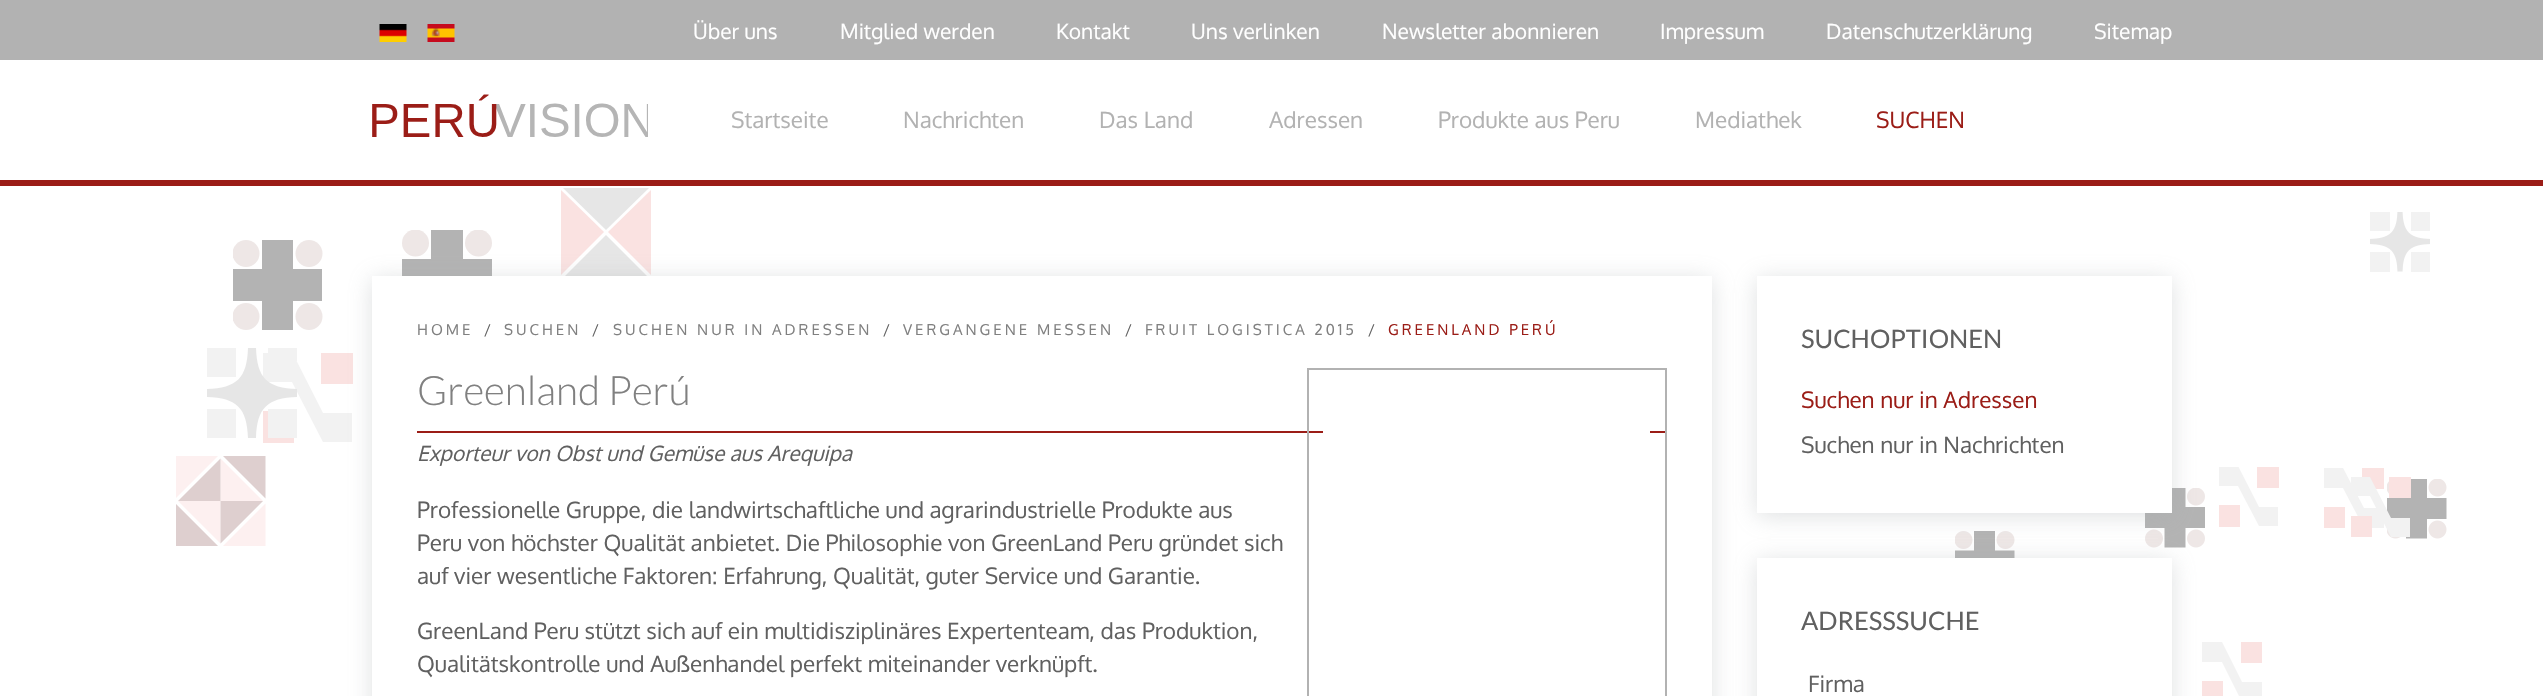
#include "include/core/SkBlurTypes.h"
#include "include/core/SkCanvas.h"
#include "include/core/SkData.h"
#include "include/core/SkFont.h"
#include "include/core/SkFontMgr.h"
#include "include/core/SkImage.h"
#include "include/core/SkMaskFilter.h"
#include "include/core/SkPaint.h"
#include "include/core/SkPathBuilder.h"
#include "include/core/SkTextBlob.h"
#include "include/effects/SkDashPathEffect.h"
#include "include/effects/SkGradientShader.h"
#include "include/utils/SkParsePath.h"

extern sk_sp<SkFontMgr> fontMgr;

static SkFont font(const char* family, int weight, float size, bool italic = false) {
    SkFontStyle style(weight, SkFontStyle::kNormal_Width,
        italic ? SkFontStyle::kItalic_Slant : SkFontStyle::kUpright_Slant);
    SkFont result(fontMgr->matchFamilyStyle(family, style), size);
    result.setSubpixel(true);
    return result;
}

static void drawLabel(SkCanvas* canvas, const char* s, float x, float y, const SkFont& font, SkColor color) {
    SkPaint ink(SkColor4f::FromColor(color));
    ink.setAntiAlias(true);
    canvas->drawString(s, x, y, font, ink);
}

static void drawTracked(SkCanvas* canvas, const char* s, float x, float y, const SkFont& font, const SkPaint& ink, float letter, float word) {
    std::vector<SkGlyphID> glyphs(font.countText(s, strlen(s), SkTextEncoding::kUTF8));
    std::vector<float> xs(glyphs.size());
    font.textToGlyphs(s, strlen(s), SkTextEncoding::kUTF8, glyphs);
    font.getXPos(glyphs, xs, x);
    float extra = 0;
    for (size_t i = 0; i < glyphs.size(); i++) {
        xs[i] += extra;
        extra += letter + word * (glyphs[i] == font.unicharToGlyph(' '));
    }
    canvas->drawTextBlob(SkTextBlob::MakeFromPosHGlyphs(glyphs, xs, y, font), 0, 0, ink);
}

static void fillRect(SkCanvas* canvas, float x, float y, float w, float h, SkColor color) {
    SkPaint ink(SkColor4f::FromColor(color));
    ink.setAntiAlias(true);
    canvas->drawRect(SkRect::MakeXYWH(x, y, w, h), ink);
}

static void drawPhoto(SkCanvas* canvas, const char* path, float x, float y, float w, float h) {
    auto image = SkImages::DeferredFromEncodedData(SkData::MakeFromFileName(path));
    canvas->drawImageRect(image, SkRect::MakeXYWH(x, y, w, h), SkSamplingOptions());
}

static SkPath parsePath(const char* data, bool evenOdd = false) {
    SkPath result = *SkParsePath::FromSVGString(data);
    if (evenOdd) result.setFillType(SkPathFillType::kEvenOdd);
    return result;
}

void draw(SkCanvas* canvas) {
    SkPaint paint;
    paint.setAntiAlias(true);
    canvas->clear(0xFFFFFFFF);
    fillRect(canvas, 0, 0, 2543, 60, 0xFFB2B2B2);
    drawPhoto(canvas, "assets/img1.png", 379, 24, 28, 18);
    drawPhoto(canvas, "assets/img2.png", 427, 24, 28, 18);
    SkFont font1 = font("Oxygen", 400, 21);
    drawLabel(canvas, "Über uns", 693, 39, font1, 0xFFFFFFFF);
    drawLabel(canvas, "Mitglied werden", 840, 39, font1, 0xFFFFFFFF);
    drawLabel(canvas, "Kontakt", 1056, 39, font1, 0xFFFFFFFF);
    drawLabel(canvas, "Uns verlinken", 1191, 39, font1, 0xFFFFFFFF);
    drawLabel(canvas, "Newsletter abonnieren", 1382, 39, font1, 0xFFFFFFFF);
    drawLabel(canvas, "Impressum", 1660, 39, font1, 0xFFFFFFFF);
    drawLabel(canvas, "Datenschutzerklärung", 1826, 39, font1, 0xFFFFFFFF);
    drawLabel(canvas, "Sitemap", 2094, 39, font1, 0xFFFFFFFF);
    fillRect(canvas, 0, 180, 2543, 6, 0xFF9B1D17);
    drawPhoto(canvas, "assets/img3.png", 372, 94, 276, 43);
    SkFont font2 = font("Oxygen", 400, 22.5f);
    drawLabel(canvas, "Startseite", 731, 128, font2, 0xFFB2B2B2);
    drawLabel(canvas, "Nachrichten", 903, 128, font2, 0xFFB2B2B2);
    drawLabel(canvas, "Das Land", 1099, 128, font2, 0xFFB2B2B2);
    drawLabel(canvas, "Adressen", 1269, 128, font2, 0xFFB2B2B2);
    drawLabel(canvas, "Produkte aus Peru", 1438, 128, font2, 0xFFB2B2B2);
    drawLabel(canvas, "Mediathek", 1695, 128, font2, 0xFFB2B2B2);
    drawLabel(canvas, "SUCHEN", 1876, 128, font2, 0xFF9B1D17);
    canvas->save();
    canvas->clipRect(SkRect::MakeXYWH(233, 240, 90, 90));
    paint.setColor(0xFFB3B3B3);
    canvas->drawPath(parsePath("M262 240H293V269H322V301H293V330H262V301H232V269H262ZM264 272H291V298H264Z"), paint);
    paint.setColor(0xFFEEE7E6);
    canvas->drawCircle(246, 253.5f, 13.5f, paint);
    canvas->restore();
    canvas->drawCircle(309, 253.5f, 13.5f, paint);
    canvas->save();
    canvas->clipRect(SkRect::MakeXYWH(233, 240, 90, 90));
    canvas->drawCircle(246, 316.5f, 13.5f, paint);
    canvas->restore();
    canvas->drawCircle(309, 316.5f, 13.5f, paint);
    paint.setColor(0xFFB3B3B3);
    canvas->drawPath(parsePath("M431 230H463V259H492V290H463V320H431V290H402V259H431ZM434 261H460V288H434Z"), paint);
    canvas->save();
    canvas->clipRect(SkRect::MakeXYWH(402, 230, 90, 90));
    paint.setColor(0xFFEEE7E6);
    canvas->drawCircle(415.5f, 243, 13.5f, paint);
    canvas->drawCircle(478.5f, 243, 13.5f, paint);
    canvas->restore();
    paint.setColor(0xFFFAE2E1);
    canvas->drawPath(parsePath("M604 232L561 190V275Z"), paint);
    canvas->drawPath(parsePath("M651 275L608 232L651 190Z"), paint);
    paint.setColor(0xFFE6E6E6);
    canvas->drawPath(parsePath("M606 230L563 188H649Z"), paint);
    canvas->drawPath(parsePath("M649 278L606 235L563 278Z"), paint);
    drawPhoto(canvas, "assets/img4.png", 2370, 212, 60, 60);
    canvas->save();
    canvas->clipRect(SkRect::MakeXYWH(263, 353, 90, 90));
    paint.setColor(0xFFF2F2F2);
    canvas->drawPath(parsePath("M262 382V352H292L323 413H352V442H323L292 382Z"), paint);
    canvas->restore();
    fillRect(canvas, 263, 411, 31, 32, 0xFFFAE2E1);
    paint.setColor(0xFFE6E6E6);
    canvas->drawPath(parsePath("M207 397V389C237 388 247 378 248 348H256C257 378 267 388 297 389V397C267 398 257 408 256 438H248C247 408 237 398 207 397Z"), paint);
    fillRect(canvas, 207, 348, 29, 29, 0xFFF2F2F2);
    fillRect(canvas, 268, 348, 29, 13, 0xFFF2F2F2);
    fillRect(canvas, 207, 409, 29, 29, 0xFFF2F2F2);
    fillRect(canvas, 268, 409, 29, 29, 0xFFF2F2F2);
    fillRect(canvas, 321, 353, 32, 31, 0xFFFAE2E1);
    drawPhoto(canvas, "assets/img5.png", 176, 456, 90, 90);
    canvas->save();
    canvas->clipRect(SkRect::MakeXYWH(2219, 467, 60, 60));
    paint.setColor(0xFFF2F2F2);
    canvas->drawPath(parsePath("M2218 486V466H2238L2259 507H2278V526H2259L2238 486Z"), paint);
    canvas->restore();
    fillRect(canvas, 2257, 467, 22, 21, 0xFFFAE2E1);
    fillRect(canvas, 2219, 505, 21, 22, 0xFFFAE2E1);
    canvas->drawPath(parsePath("M2324 488V468H2343L2364 508H2384V528H2364L2343 488Z"), paint);
    fillRect(canvas, 2362, 468, 22, 21, 0xFFFAE2E1);
    fillRect(canvas, 2324, 507, 21, 21, 0xFFFAE2E1);
    drawPhoto(canvas, "assets/img6.png", 1955, 531, 60, 27);
    drawPhoto(canvas, "assets/img7.png", 2145, 488, 60, 60);
    drawPhoto(canvas, "assets/img8.png", 2387, 479, 60, 60);
    canvas->save();
    canvas->clipRect(SkRect::MakeXYWH(2351, 477, 60, 60));
    canvas->drawPath(parsePath("M2350 496V477H2370L2391 518H2410V537H2391L2370 496Z"), paint);
    canvas->restore();
    fillRect(canvas, 2389, 477, 22, 21, 0xFFFAE2E1);
    fillRect(canvas, 2351, 516, 21, 21, 0xFFFAE2E1);
    canvas->drawPath(parsePath("M2202 662V642H2222L2242 682H2262V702H2242L2222 662Z"), paint);
    fillRect(canvas, 2241, 642, 21, 21, 0xFFFAE2E1);
    fillRect(canvas, 2202, 681, 21, 15, 0xFFFAE2E1);
    paint.setColor(0x59A0A6A8);
    paint.setMaskFilter(SkMaskFilter::MakeBlur(kNormal_SkBlurStyle, 11));
    canvas->drawRect(SkRect::MakeXYWH(372, 279, 1340, 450), paint);
    paint.setMaskFilter(nullptr);
    fillRect(canvas, 372, 276, 1340, 420, 0xFFFFFFFF);
    SkFont font3 = font("Oxygen", 400, 15);
    paint.setColor(0xFF808080);
    drawTracked(canvas, "HOME", 417, 335, font3, paint, 3, 0);
    paint.setColor(0xFF606060);
    drawTracked(canvas, "/", 484, 335, font3, paint, 3, 0);
    paint.setColor(0xFF808080);
    drawTracked(canvas, "SUCHEN", 504, 335, font3, paint, 3, 0);
    paint.setColor(0xFF606060);
    drawTracked(canvas, "/", 592, 335, font3, paint, 3, 0);
    paint.setColor(0xFF808080);
    drawTracked(canvas, "SUCHEN NUR IN ADRESSEN", 613, 335, font3, paint, 3, 0);
    paint.setColor(0xFF606060);
    drawTracked(canvas, "/", 883, 335, font3, paint, 3, 0);
    paint.setColor(0xFF808080);
    drawTracked(canvas, "VERGANGENE MESSEN", 903, 335, font3, paint, 3, 0);
    paint.setColor(0xFF606060);
    drawTracked(canvas, "/", 1125, 335, font3, paint, 3, 0);
    paint.setColor(0xFF808080);
    drawTracked(canvas, "FRUIT LOGISTICA 2015", 1145, 335, font3, paint, 3, 0);
    paint.setColor(0xFF606060);
    drawTracked(canvas, "/", 1368, 335, font3, paint, 3, 0);
    paint.setColor(0xFF9B1D17);
    drawTracked(canvas, "GREENLAND PERÚ", 1388, 335, font3, paint, 3, 0);
    fillRect(canvas, 417, 431, 1250, 2, 0xFF9B1D17);
    SkFont font4 = font("Lato", 300, 40.5f);
    drawLabel(canvas, "Greenland Perú", 417, 405, font4, 0xFF808080);
    paint.setStroke(true);
    paint.setStrokeWidth(2);
    paint.setColor(0xFFB2B2B2);
    canvas->drawRect(SkRect::MakeXYWH(1308, 369, 358, 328), paint);
    fillRect(canvas, 1323, 431, 327, 2, 0xFFFFFFFF);
    SkFont font5 = font("Oxygen", 400, 21, true);
    drawLabel(canvas, "Exporteur von Obst und Gemüse aus Arequipa", 417, 461, font5, 0xFF606060);
    drawLabel(canvas, "Professionelle Gruppe, die landwirtschaftliche und agrarindustrielle Produkte aus", 417, 518, font2, 0xFF606060);
    drawLabel(canvas, "Peru von höchster Qualität anbietet. Die Philosophie von GreenLand Peru gründet sich", 417, 551, font2, 0xFF606060);
    drawLabel(canvas, "auf vier wesentliche Faktoren: Erfahrung, Qualität, guter Service und Garantie.", 417, 584, font2, 0xFF606060);
    drawLabel(canvas, "GreenLand Peru stützt sich auf ein multidisziplinäres Expertenteam, das Produktion,", 417, 639, font2, 0xFF606060);
    drawLabel(canvas, "Qualitätskontrolle und Außenhandel perfekt miteinander verknüpft.", 417, 672, font2, 0xFF606060);
    paint.setStroke(false);
    paint.setColor(0x59A0A6A8);
    paint.setMaskFilter(SkMaskFilter::MakeBlur(kNormal_SkBlurStyle, 11));
    canvas->drawRect(SkRect::MakeXYWH(1757, 279, 415, 237), paint);
    paint.setMaskFilter(nullptr);
    fillRect(canvas, 1757, 276, 415, 237, 0xFFFFFFFF);
    SkFont font6 = font("Lato", 400, 25.5f);
    drawLabel(canvas, "SUCHOPTIONEN", 1801, 348, font6, 0xFF606060);
    drawLabel(canvas, "Suchen nur in Adressen", 1801, 408, font2, 0xFF9B1D17);
    drawLabel(canvas, "Suchen nur in Nachrichten", 1801, 453, font2, 0xFF606060);
    paint.setMaskFilter(SkMaskFilter::MakeBlur(kNormal_SkBlurStyle, 11));
    canvas->drawRect(SkRect::MakeXYWH(1757, 561, 415, 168), paint);
    paint.setMaskFilter(nullptr);
    fillRect(canvas, 1757, 558, 415, 138, 0xFFFFFFFF);
    drawLabel(canvas, "ADRESSSUCHE", 1801, 630, font6, 0xFF606060);
    drawLabel(canvas, "Firma", 1808, 692, font2, 0xFF606060);
}
